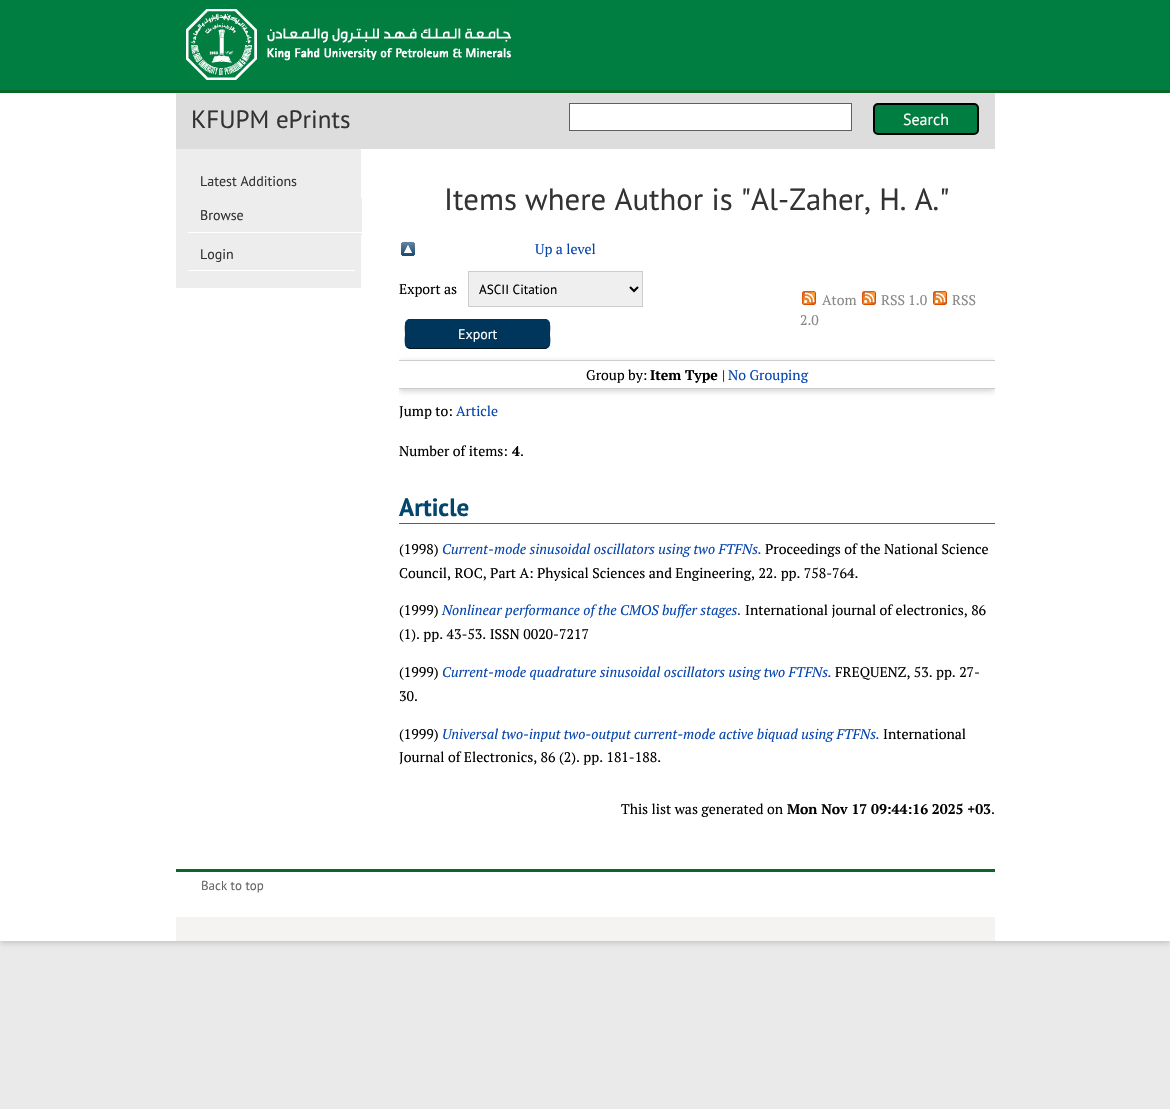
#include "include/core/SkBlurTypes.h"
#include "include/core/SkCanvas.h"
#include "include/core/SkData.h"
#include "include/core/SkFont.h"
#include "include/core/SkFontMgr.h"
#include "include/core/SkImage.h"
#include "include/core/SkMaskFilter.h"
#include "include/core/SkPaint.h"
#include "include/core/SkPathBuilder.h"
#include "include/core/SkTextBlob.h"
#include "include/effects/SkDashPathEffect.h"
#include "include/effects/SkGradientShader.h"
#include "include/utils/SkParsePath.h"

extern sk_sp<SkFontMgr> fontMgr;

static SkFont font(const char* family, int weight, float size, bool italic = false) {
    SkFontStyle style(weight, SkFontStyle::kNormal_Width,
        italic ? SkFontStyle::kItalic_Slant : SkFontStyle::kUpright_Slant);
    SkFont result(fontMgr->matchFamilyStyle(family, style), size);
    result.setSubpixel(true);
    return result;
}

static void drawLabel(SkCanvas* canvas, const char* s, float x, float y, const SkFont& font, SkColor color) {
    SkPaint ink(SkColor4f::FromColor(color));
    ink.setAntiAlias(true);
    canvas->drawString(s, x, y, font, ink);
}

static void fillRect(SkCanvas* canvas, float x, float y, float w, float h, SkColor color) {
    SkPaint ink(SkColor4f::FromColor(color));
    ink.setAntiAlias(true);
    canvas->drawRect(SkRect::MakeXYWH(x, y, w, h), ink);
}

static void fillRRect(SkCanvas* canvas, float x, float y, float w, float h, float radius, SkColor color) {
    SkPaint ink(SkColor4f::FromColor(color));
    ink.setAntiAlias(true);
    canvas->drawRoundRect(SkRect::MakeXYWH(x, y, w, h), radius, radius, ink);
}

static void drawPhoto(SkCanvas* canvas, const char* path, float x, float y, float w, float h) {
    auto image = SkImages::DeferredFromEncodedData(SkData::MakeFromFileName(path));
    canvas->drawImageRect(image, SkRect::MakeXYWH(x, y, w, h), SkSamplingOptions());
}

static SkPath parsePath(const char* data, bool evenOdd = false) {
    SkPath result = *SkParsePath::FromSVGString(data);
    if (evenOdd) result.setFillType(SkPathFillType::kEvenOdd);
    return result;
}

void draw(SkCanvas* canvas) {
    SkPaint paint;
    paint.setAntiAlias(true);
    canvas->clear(0xFFEAEAEA);
    paint.setColor(0x4D646464);
    paint.setMaskFilter(SkMaskFilter::MakeBlur(kNormal_SkBlurStyle, 3));
    canvas->drawRect(SkRect::MakeXYWH(0, 1, 1170, 942), paint);
    paint.setMaskFilter(nullptr);
    fillRect(canvas, 0, 93, 1170, 848, 0xFFFFFFFF);
    fillRect(canvas, 0, 0, 1170, 90, 0xFF007D40);
    fillRect(canvas, 0, 90, 1170, 3, 0xFF0A672A);
    drawPhoto(canvas, "assets/img1.png", 186, 9, 325, 71);
    fillRect(canvas, 176, 869, 819, 3, 0xFF0A672A);
    fillRect(canvas, 176, 93, 819, 56, 0xFFDDDDDD);
    SkFont font1 = font("PT Sans", 400, 25);
    drawLabel(canvas, "KFUPM ePrints", 191, 128, font1, 0xFF333333);
    paint.setColor(0xFFFFFFFF);
    canvas->drawRect(SkRect::MakeXYWH(569.5f, 103.5f, 282, 27), paint);
    paint.setStroke(true);
    paint.setStrokeWidth(1);
    paint.setColor(0xFF606060);
    canvas->drawRect(SkRect::MakeXYWH(569.5f, 103.5f, 282, 27), paint);
    paint.setStroke(false);
    paint.setColor(0xFF007D40);
    canvas->drawRoundRect(SkRect::MakeXYWH(874, 104, 104, 30), 4, 4, paint);
    paint.setStroke(true);
    paint.setStrokeWidth(2);
    paint.setColor(0xFF000000);
    canvas->drawRoundRect(SkRect::MakeXYWH(874, 104, 104, 30), 4, 4, paint);
    SkFont font2 = font("PT Sans", 400, 16);
    drawLabel(canvas, "Search", 903, 125, font2, 0xFFFFFFFF);
    fillRect(canvas, 176, 149, 185, 139, 0xFFEDEDED);
    SkFont font3 = font("PT Sans", 400, 14);
    drawLabel(canvas, "Latest Additions", 200, 186, font3, 0xFF333333);
    fillRect(canvas, 361, 198, 1, 37, 0xFFEDEDED);
    fillRect(canvas, 188, 232, 174, 1, 0xFFFFFFFF);
    drawLabel(canvas, "Browse", 200, 220, font3, 0xFF333333);
    fillRect(canvas, 188, 270, 167, 1, 0xFFFFFFFF);
    drawLabel(canvas, "Login", 200, 259, font3, 0xFF333333);
    SkFont font4 = font("PT Sans", 400, 30.75f);
    drawLabel(canvas, "Items where Author is \"Al-Zaher, H. A.\"", 444, 210, font4, 0xFF333333);
    drawPhoto(canvas, "assets/img2.png", 401, 242, 14, 14);
    SkFont font5 = font("PT Serif", 400, 14);
    drawLabel(canvas, "Up a level", 535, 254, font5, 0xFF0645AD);
    drawLabel(canvas, "Export as", 399, 294, font5, 0xFF000000);
    paint.setStroke(false);
    paint.setColor(0xFFEFEFEF);
    canvas->drawRect(SkRect::MakeXYWH(468.5f, 271.5f, 174, 35), paint);
    paint.setStroke(true);
    paint.setStrokeWidth(1);
    paint.setColor(0xFFCCCCCC);
    canvas->drawRect(SkRect::MakeXYWH(468.5f, 271.5f, 174, 35), paint);
    paint.setStrokeWidth(2);
    paint.setColor(0xFF000000);
    canvas->drawPath(parsePath("M630 287L634 291L638 287"), paint);
    SkFont font6 = font("PT Sans", 400, 13.25f);
    drawLabel(canvas, "ASCII Citation", 479, 294, font6, 0xFF000000);
    fillRRect(canvas, 405, 319, 145, 30, 5, 0xFF00365B);
    paint.setStrokeWidth(1);
    paint.setColor(0xFF04141F);
    canvas->drawPath(parsePath("M548 347L545.5 348.5H432.5H410L407 347"), paint);
    paint.setColor(0xFF00365B);
    canvas->drawPath(parsePath("M407 347C404 344.5 405.5 337 405.5 334C405.5 330.5 403.5 319.5 410 319.5H545C551.5 319.5 549.5 330.5 549.5 334C549.5 337 551 344.5 548 347"), paint);
    drawLabel(canvas, "Export", 458, 339, font3, 0xFFFFFFFF);
    drawPhoto(canvas, "assets/img3.png", 802, 291, 14, 14);
    drawLabel(canvas, "Atom", 822, 305, font5, 0xFF888888);
    drawPhoto(canvas, "assets/img3.png", 862, 291, 14, 14);
    drawLabel(canvas, "RSS 1.0", 881, 305, font5, 0xFF888888);
    drawPhoto(canvas, "assets/img3.png", 933, 291, 14, 14);
    drawLabel(canvas, "RSS", 952, 305, font5, 0xFF888888);
    drawLabel(canvas, "2.0", 800, 325, font5, 0xFF888888);
    canvas->save();
    canvas->clipRect(SkRect::MakeXYWH(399, 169, 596, 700));
    canvas->clipPath(parsePath("M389 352H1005V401H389ZM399 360H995V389H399Z", true), true);
    paint.setStroke(false);
    paint.setColor(0x4D646464);
    paint.setMaskFilter(SkMaskFilter::MakeBlur(kNormal_SkBlurStyle, 3));
    canvas->drawRect(SkRect::MakeXYWH(399, 362, 596, 29), paint);
    paint.setMaskFilter(nullptr);
    canvas->restore();
    fillRect(canvas, 399, 360, 596, 1, 0xFFCCCCCC);
    fillRect(canvas, 399, 388, 596, 1, 0xFFCCCCCC);
    drawLabel(canvas, "Group by:", 586, 380, font5, 0xFF000000);
    SkFont font7 = font("PT Serif", 700, 14);
    drawLabel(canvas, "Item Type", 650, 380, font7, 0xFF000000);
    drawLabel(canvas, "|", 722, 380, font5, 0xFF000000);
    drawLabel(canvas, "No Grouping", 728, 380, font5, 0xFF0645AD);
    drawLabel(canvas, "Jump to:", 399, 416, font5, 0xFF000000);
    drawLabel(canvas, "Article", 456, 416, font5, 0xFF0645AD);
    drawLabel(canvas, "Number of items:", 399, 456, font5, 0xFF000000);
    drawLabel(canvas, "4", 512, 456, font7, 0xFF000000);
    drawLabel(canvas, ".", 520, 456, font5, 0xFF000000);
    fillRect(canvas, 399, 523, 596, 1, 0xFF606060);
    SkFont font8 = font("PT Sans", 700, 25);
    drawLabel(canvas, "Article", 399, 516, font8, 0xFF02456D);
    drawLabel(canvas, "(1998)", 399, 554, font5, 0xFF000000);
    SkFont font9 = font("PT Serif", 400, 14, true);
    drawLabel(canvas, "Current-mode sinusoidal oscillators using two FTFNs.", 442, 554, font9, 0xFF0645AD);
    drawLabel(canvas, "Proceedings of the National Science", 765, 554, font5, 0xFF000000);
    drawLabel(canvas, "Council, ROC, Part A: Physical Sciences and Engineering, 22. pp. 758-764.", 399, 578, font5, 0xFF000000);
    drawLabel(canvas, "(1999)", 399, 615, font5, 0xFF000000);
    drawLabel(canvas, "Nonlinear performance of the CMOS buffer stages.", 442, 615, font9, 0xFF0645AD);
    drawLabel(canvas, "International journal of electronics, 86", 745, 615, font5, 0xFF000000);
    drawLabel(canvas, "(1). pp. 43-53. ISSN 0020-7217", 399, 639, font5, 0xFF000000);
    drawLabel(canvas, "(1999)", 399, 677, font5, 0xFF000000);
    drawLabel(canvas, "Current-mode quadrature sinusoidal oscillators using two FTFNs.", 442, 677, font9, 0xFF0645AD);
    drawLabel(canvas, "FREQUENZ, 53. pp. 27-", 835, 677, font5, 0xFF000000);
    drawLabel(canvas, "30.", 399, 701, font5, 0xFF000000);
    drawLabel(canvas, "(1999)", 399, 739, font5, 0xFF000000);
    drawLabel(canvas, "Universal two-input two-output current-mode active biquad using FTFNs.", 442, 739, font9, 0xFF0645AD);
    drawLabel(canvas, "International", 883, 739, font5, 0xFF000000);
    drawLabel(canvas, "Journal of Electronics, 86 (2). pp. 181-188.", 399, 762, font5, 0xFF000000);
    drawLabel(canvas, "This list was generated on", 621, 814, font5, 0xFF000000);
    drawLabel(canvas, "Mon Nov 17 09:44:16 2025 +03", 787, 814, font7, 0xFF000000);
    drawLabel(canvas, ".", 991, 814, font5, 0xFF000000);
    fillRect(canvas, 176, 917, 819, 24, 0xFFF4F3F2);
    SkFont font10 = font("PT Sans", 400, 13);
    drawLabel(canvas, "Back to top", 201, 890, font10, 0xFF666666);
}
